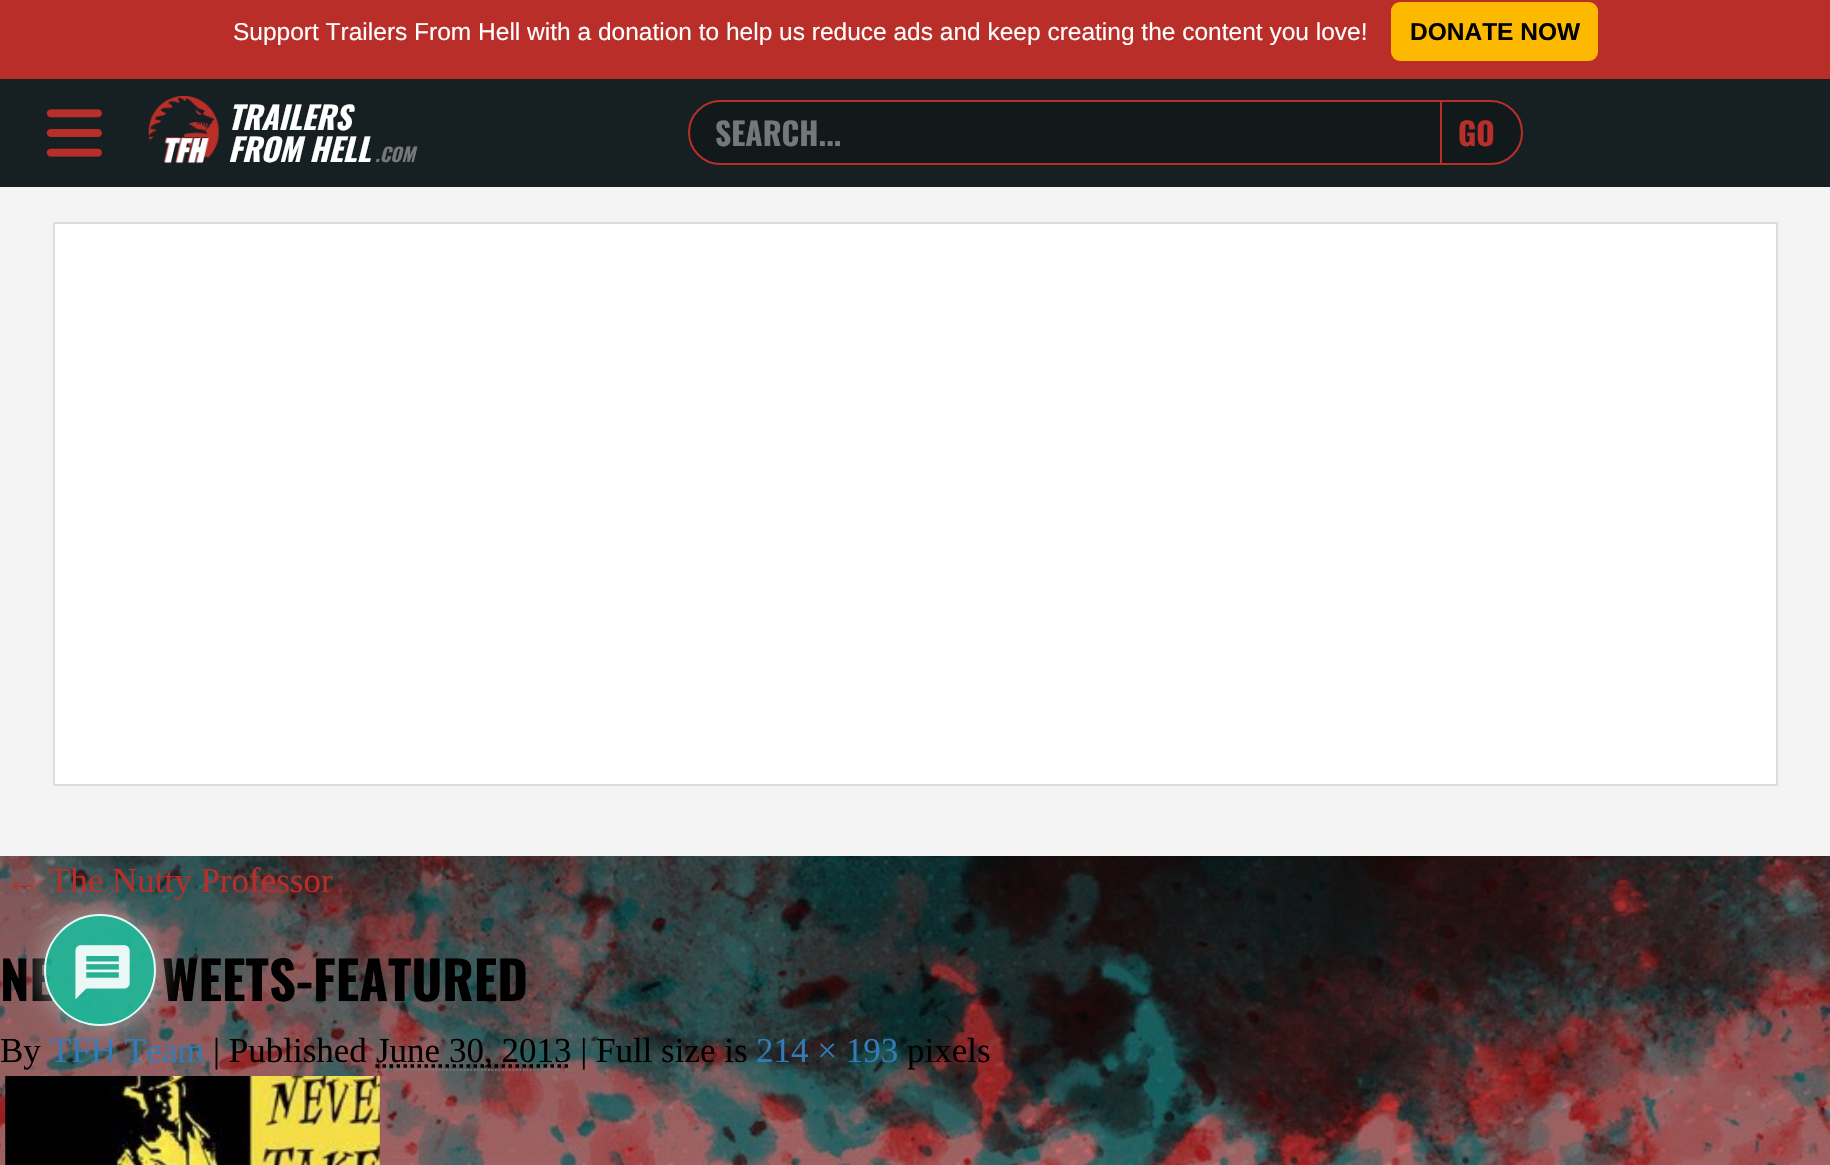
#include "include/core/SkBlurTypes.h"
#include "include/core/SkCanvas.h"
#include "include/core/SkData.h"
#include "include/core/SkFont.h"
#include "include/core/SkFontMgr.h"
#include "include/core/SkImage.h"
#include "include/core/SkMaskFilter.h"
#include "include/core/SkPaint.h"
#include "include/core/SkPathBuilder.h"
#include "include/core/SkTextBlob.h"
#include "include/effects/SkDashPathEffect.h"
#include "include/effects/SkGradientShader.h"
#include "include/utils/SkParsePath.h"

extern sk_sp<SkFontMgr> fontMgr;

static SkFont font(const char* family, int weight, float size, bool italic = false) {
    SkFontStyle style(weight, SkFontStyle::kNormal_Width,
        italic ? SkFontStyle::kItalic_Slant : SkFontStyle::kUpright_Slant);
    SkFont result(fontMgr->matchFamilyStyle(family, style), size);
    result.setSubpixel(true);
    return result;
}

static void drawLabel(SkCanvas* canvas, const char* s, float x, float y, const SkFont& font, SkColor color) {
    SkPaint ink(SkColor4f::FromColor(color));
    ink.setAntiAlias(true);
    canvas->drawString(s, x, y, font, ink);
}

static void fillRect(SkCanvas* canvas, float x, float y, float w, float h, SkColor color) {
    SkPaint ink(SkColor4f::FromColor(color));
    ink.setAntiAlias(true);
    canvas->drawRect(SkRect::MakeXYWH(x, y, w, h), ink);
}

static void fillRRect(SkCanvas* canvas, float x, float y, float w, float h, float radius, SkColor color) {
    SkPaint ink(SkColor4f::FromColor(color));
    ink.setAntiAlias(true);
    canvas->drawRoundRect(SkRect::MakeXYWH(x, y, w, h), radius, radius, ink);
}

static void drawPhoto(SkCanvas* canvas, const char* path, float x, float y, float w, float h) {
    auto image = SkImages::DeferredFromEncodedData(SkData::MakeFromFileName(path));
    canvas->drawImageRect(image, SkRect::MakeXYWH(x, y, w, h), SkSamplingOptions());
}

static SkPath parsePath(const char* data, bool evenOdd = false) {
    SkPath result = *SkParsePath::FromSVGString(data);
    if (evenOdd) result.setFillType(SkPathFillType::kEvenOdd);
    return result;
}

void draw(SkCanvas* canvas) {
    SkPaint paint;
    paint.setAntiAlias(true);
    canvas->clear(0xFFFFFFFF);
    drawPhoto(canvas, "assets/img1.png", 0, 856, 1830, 309);
    fillRect(canvas, 0, 0, 1830, 79, 0xFFBA2E29);
    SkFont font1 = font("Liberation Sans", 400, 24.5f);
    drawLabel(canvas, "Support Trailers From Hell with a donation to help us reduce ads and keep creating the content you love!", 233, 40, font1, 0xFFFFFFFF);
    fillRRect(canvas, 1391, 2, 207, 59, 9, 0xFFFCB900);
    SkFont font2 = font("Liberation Sans", 700, 24.5f);
    drawLabel(canvas, "DONATE NOW", 1410, 40, font2, 0xFF000000);
    fillRect(canvas, 0, 79, 1830, 108, 0xFF161F22);
    drawPhoto(canvas, "assets/img2.png", 46, 109, 56, 48);
    drawPhoto(canvas, "assets/img3.png", 148, 96, 71, 68);
    SkFont font3 = font("Oswald", 700, 31.5f, true);
    drawLabel(canvas, "TRAILERS", 228, 130, font3, 0xFFFFFFFF);
    drawLabel(canvas, "FROM HELL", 228, 162, font3, 0xFFFFFFFF);
    SkFont font4 = font("Oswald", 700, 19, true);
    drawLabel(canvas, ".COM", 375, 162, font4, 0xFF73797A);
    paint.setColor(0xFF12191B);
    canvas->drawRoundRect(SkRect::MakeXYWH(689, 101, 833, 63), 31.5f, 31.5f, paint);
    paint.setStroke(true);
    paint.setStrokeWidth(2);
    paint.setColor(0xFFBA2E29);
    canvas->drawRoundRect(SkRect::MakeXYWH(689, 101, 833, 63), 31.5f, 31.5f, paint);
    fillRect(canvas, 1440, 102, 2, 61, 0xFFBA2E29);
    SkFont font5 = font("Oswald", 700, 31.5f);
    drawLabel(canvas, "SEARCH...", 715, 146, font5, 0xFF73797A);
    drawLabel(canvas, "GO", 1458, 146, font5, 0xFFBA2E29);
    fillRect(canvas, 0, 187, 1830, 669, 0xFFF4F4F4);
    paint.setStroke(false);
    paint.setColor(0xFFFFFFFF);
    canvas->drawRect(SkRect::MakeXYWH(54, 223, 1723, 562), paint);
    paint.setStroke(true);
    paint.setColor(0xFFDDDDDD);
    canvas->drawRect(SkRect::MakeXYWH(54, 223, 1723, 562), paint);
    SkFont font6 = font("Liberation Serif", 400, 35);
    drawLabel(canvas, "← The Nutty Professor", 5, 892, font6, 0xFFBA2E29);
    SkFont font7 = font("Oswald", 700, 52.5f);
    drawLabel(canvas, "NE", 0, 1001, font7, 0xFF000000);
    drawLabel(canvas, "WEETS-FEATURED", 162, 1001, font7, 0xFF000000);
    drawLabel(canvas, "By", 0, 1062, font6, 0xFF000000);
    drawLabel(canvas, "TFH Team", 50, 1062, font6, 0xFF337AB7);
    drawLabel(canvas, "| Published", 213, 1062, font6, 0xFF000000);
    paint.setStrokeWidth(1.8f);
    paint.setColor(0xFF777777);
    paint.setPathEffect(SkDashPathEffect::Make({{1.75f, 1.75f}}, 0));
    canvas->drawPath(parsePath("M376 1070H570.5"), paint);
    paint.setPathEffect(nullptr);
    paint.setStrokeWidth(3.5f);
    paint.setColor(0xFF000000);
    paint.setPathEffect(SkDashPathEffect::Make({{3.5f, 3.5f}}, 0));
    canvas->drawPath(parsePath("M375.5 1066H571"), paint);
    paint.setPathEffect(nullptr);
    drawLabel(canvas, "June 30, 2013 | Full size is", 376, 1062, font6, 0xFF000000);
    drawLabel(canvas, "214 × 193", 756, 1062, font6, 0xFF337AB7);
    drawLabel(canvas, "pixels", 907, 1062, font6, 0xFF000000);
    drawPhoto(canvas, "assets/img4.png", 5, 1076, 375, 89);
    canvas->save();
    canvas->clipPath(parsePath("M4 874H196V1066H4ZM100 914C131 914 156 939 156 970C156 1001 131 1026 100 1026C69 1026 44 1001 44 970C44 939 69 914 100 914Z", true), true);
    paint.setStroke(false);
    paint.setColor(0xE6AAAAAA);
    paint.setMaskFilter(SkMaskFilter::MakeBlur(kNormal_SkBlurStyle, 13));
    canvas->drawRoundRect(SkRect::MakeXYWH(44, 914, 112, 112), 56, 56, paint);
    paint.setMaskFilter(nullptr);
    canvas->restore();
    paint.setColor(0xE61DB99A);
    canvas->drawCircle(100, 970, 56, paint);
    paint.setStroke(true);
    paint.setStrokeWidth(2);
    paint.setColor(0xE6FFFFFF);
    canvas->drawCircle(100, 970, 55, paint);
    drawPhoto(canvas, "assets/img5.png", 75, 945, 55, 55);
}
